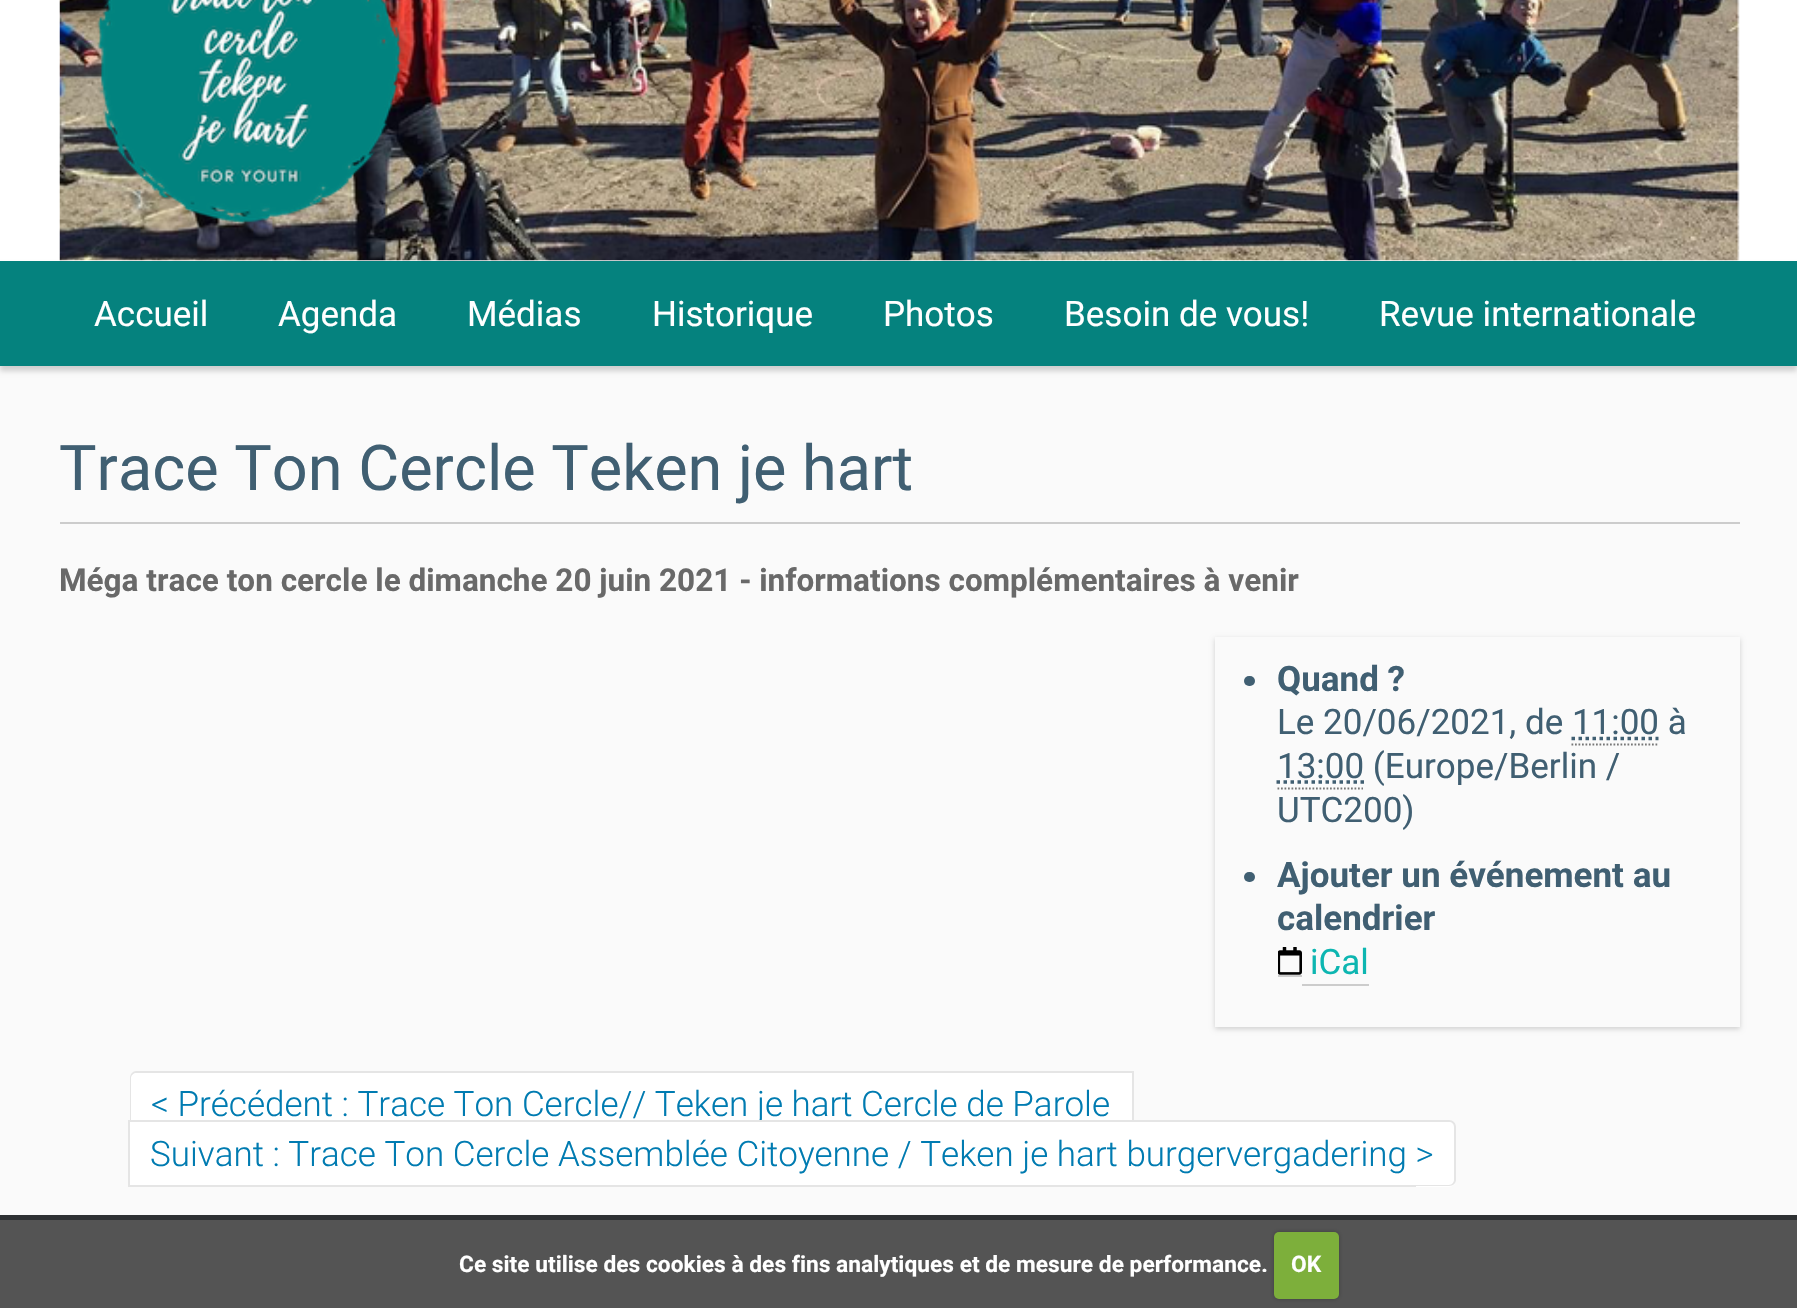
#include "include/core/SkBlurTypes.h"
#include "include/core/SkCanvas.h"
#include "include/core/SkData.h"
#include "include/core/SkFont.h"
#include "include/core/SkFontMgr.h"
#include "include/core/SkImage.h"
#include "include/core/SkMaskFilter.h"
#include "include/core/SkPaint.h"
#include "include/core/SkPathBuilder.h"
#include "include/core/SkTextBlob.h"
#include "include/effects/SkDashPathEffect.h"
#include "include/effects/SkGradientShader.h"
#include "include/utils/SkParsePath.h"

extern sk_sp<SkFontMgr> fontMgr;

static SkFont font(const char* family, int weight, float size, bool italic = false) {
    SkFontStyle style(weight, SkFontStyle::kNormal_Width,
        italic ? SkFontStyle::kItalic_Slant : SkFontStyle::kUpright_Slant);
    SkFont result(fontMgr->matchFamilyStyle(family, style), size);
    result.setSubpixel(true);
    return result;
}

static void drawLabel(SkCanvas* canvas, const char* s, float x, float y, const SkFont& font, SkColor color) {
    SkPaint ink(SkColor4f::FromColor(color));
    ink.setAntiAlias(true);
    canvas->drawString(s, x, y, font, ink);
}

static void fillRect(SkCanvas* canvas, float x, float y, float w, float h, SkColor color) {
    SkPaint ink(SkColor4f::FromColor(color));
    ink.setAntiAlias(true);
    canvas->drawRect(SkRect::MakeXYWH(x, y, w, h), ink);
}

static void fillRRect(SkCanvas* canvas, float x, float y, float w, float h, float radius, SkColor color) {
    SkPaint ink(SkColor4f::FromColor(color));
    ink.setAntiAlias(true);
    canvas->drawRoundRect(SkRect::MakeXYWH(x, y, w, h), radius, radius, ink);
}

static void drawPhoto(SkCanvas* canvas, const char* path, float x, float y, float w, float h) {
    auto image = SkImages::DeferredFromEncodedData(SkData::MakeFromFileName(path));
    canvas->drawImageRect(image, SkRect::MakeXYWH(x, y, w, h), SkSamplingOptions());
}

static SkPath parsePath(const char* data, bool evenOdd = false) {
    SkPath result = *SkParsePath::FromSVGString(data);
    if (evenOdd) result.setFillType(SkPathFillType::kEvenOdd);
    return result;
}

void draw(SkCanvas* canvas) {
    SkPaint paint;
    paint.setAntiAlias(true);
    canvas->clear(0xFFFAFAFA);
    fillRect(canvas, 0, 0, 1797, 261, 0xFFFFFFFF);
    drawPhoto(canvas, "assets/img1.png", 59, 0, 1681, 261);
    drawPhoto(canvas, "assets/img2.png", 97, 0, 305, 224);
    paint.setColor(0x2B000000);
    paint.setMaskFilter(SkMaskFilter::MakeBlur(kNormal_SkBlurStyle, 2.5f));
    canvas->drawRect(SkRect::MakeXYWH(0, 266, 1797, 105), paint);
    paint.setMaskFilter(nullptr);
    fillRect(canvas, 0, 261, 1797, 105, 0xFF05827E);
    SkFont font1 = font("Roboto", 400, 35);
    drawLabel(canvas, "Accueil", 94, 326, font1, 0xFFFFFFFF);
    drawLabel(canvas, "Agenda", 278, 326, font1, 0xFFFFFFFF);
    drawLabel(canvas, "Médias", 467, 326, font1, 0xFFFFFFFF);
    drawLabel(canvas, "Historique", 652, 326, font1, 0xFFFFFFFF);
    drawLabel(canvas, "Photos", 883, 326, font1, 0xFFFFFFFF);
    drawLabel(canvas, "Besoin de vous!", 1064, 326, font1, 0xFFFFFFFF);
    drawLabel(canvas, "Revue internationale", 1379, 326, font1, 0xFFFFFFFF);
    fillRect(canvas, 60, 522, 1680, 2, 0xFFCCCCCC);
    SkFont font2 = font("Roboto", 400, 63);
    drawLabel(canvas, "Trace Ton Cercle Teken je hart", 59, 490, font2, 0xFF405F72);
    SkFont font3 = font("Roboto", 700, 31.5f);
    drawLabel(canvas, "Méga trace ton cercle le dimanche 20 juin 2021 - informations complémentaires à venir", 59, 591, font3, 0xFF696969);
    paint.setMaskFilter(SkMaskFilter::MakeBlur(kNormal_SkBlurStyle, 2.5f));
    canvas->drawRect(SkRect::MakeXYWH(1215, 639, 525, 390), paint);
    paint.setMaskFilter(nullptr);
    fillRect(canvas, 1215, 637, 525, 390, 0xFFFAFAFA);
    fillRRect(canvas, 1244, 676, 11, 10, 5, 0xFF405F72);
    SkFont font4 = font("Roboto", 700, 35);
    drawLabel(canvas, "Quand ?", 1277, 691, font4, 0xFF405F72);
    drawLabel(canvas, "Le 20/06/2021, de 11:00 à", 1277, 734, font1, 0xFF405F72);
    paint.setStroke(true);
    paint.setStrokeWidth(3.5f);
    paint.setColor(0xFF405F72);
    paint.setPathEffect(SkDashPathEffect::Make({{3.5f, 3.5f}}, 0));
    canvas->drawPath(parsePath("M1571.5 738.5H1658.5"), paint);
    paint.setPathEffect(nullptr);
    paint.setStrokeWidth(1.8f);
    paint.setColor(0xFF777777);
    paint.setPathEffect(SkDashPathEffect::Make({{1.75f, 1.75f}}, 0));
    canvas->drawPath(parsePath("M1571.5 744.5H1659"), paint);
    paint.setPathEffect(nullptr);
    paint.setStrokeWidth(3.5f);
    paint.setColor(0xFF405F72);
    paint.setPathEffect(SkDashPathEffect::Make({{3.5f, 3.5f}}, 0));
    canvas->drawPath(parsePath("M1276.5 782H1364"), paint);
    paint.setPathEffect(nullptr);
    drawLabel(canvas, "13:00 (Europe/Berlin /", 1277, 778, font1, 0xFF405F72);
    paint.setStrokeWidth(1.8f);
    paint.setColor(0xFF777777);
    paint.setPathEffect(SkDashPathEffect::Make({{1.75f, 1.75f}}, 0));
    canvas->drawPath(parsePath("M1277.5 788.5H1363"), paint);
    paint.setPathEffect(nullptr);
    drawLabel(canvas, "UTC200)", 1277, 822, font1, 0xFF405F72);
    fillRRect(canvas, 1244, 872, 11, 10, 5, 0xFF405F72);
    drawLabel(canvas, "Ajouter un événement au", 1277, 887, font4, 0xFF405F72);
    drawLabel(canvas, "calendrier", 1277, 930, font4, 0xFF405F72);
    drawPhoto(canvas, "assets/img3.png", 1278, 947, 24, 28);
    drawLabel(canvas, "iCal", 1310, 974, font1, 0xFF0DB6B1);
    fillRect(canvas, 1278, 975, 24, 2, 0xFFCCCCCC);
    fillRect(canvas, 1302, 984, 67, 2, 0xFFCCCCCC);
    paint.setStroke(false);
    paint.setColor(0xFFFFFFFF);
    canvas->drawPath(parsePath("M137 1071H170V1138H137C133 1138 130 1135 130 1131V1078C130 1074 133 1071 137 1071Z"), paint);
    paint.setColor(0xFFE5E5E5);
    canvas->drawPath(parsePath("M136 1071H170V1138H136C133 1138 130 1134 130 1130V1078C130 1074 133 1071 136 1071ZM136 1073H170V1136H136C134 1136 131 1133 131 1130V1078C131 1075 134 1073 136 1073Z", true), paint);
    fillRect(canvas, 170, 1073, 962, 47, 0xFFFFFFFF);
    SkFont font5 = font("Roboto", 300, 35);
    drawLabel(canvas, "< Précédent : Trace Ton Cercle// Teken je hart Cercle de Parole", 151, 1116, font5, 0xFF007BB1);
    fillRect(canvas, 170, 1071, 964, 2, 0xFFE5E5E5);
    fillRect(canvas, 1132, 1071, 2, 49, 0xFFE5E5E5);
    fillRect(canvas, 130, 1122, 1286, 63, 0xFFFFFFFF);
    paint.setColor(0xFFFFFFFF);
    canvas->drawPath(parsePath("M1416 1120H1449C1453 1120 1456 1123 1456 1127V1180C1456 1184 1453 1187 1449 1187H1416Z"), paint);
    paint.setColor(0xFFE5E5E5);
    canvas->drawPath(parsePath("M1416 1120H1449C1453 1120 1456 1123 1456 1127V1180C1456 1183 1453 1186 1449 1186H1416ZM1416 1122H1449C1452 1122 1454 1124 1454 1127V1180C1454 1182 1452 1185 1449 1185H1416Z", true), paint);
    drawLabel(canvas, "Suivant : Trace Ton Cercle Assemblée Citoyenne / Teken je hart burgervergadering >", 150, 1166, font5, 0xFF007BB1);
    fillRect(canvas, 128, 1120, 1288, 2, 0xFFE5E5E5);
    fillRect(canvas, 128, 1185, 1288, 2, 0xFFE5E5E5);
    fillRect(canvas, 128, 1120, 2, 67, 0xFFE5E5E5);
    fillRect(canvas, 0, 1215, 1797, 5, 0xFF2E3133);
    fillRect(canvas, 0, 1220, 1797, 88, 0xFF545454);
    SkFont font6 = font("Roboto", 700, 22.75f);
    drawLabel(canvas, "Ce site utilise des cookies à des fins analytiques et de mesure de performance.", 459, 1272, font6, 0xFFFFFFFF);
    paint.setColor(0x40000000);
    paint.setMaskFilter(SkMaskFilter::MakeBlur(kNormal_SkBlurStyle, 2));
    canvas->drawRoundRect(SkRect::MakeXYWH(1274, 1232, 65, 67), 5, 5, paint);
    paint.setMaskFilter(nullptr);
    fillRRect(canvas, 1274, 1232, 65, 67, 5, 0xFF7DAF3B);
    drawLabel(canvas, "OK", 1291, 1272, font6, 0xFFFFFFFF);
}
